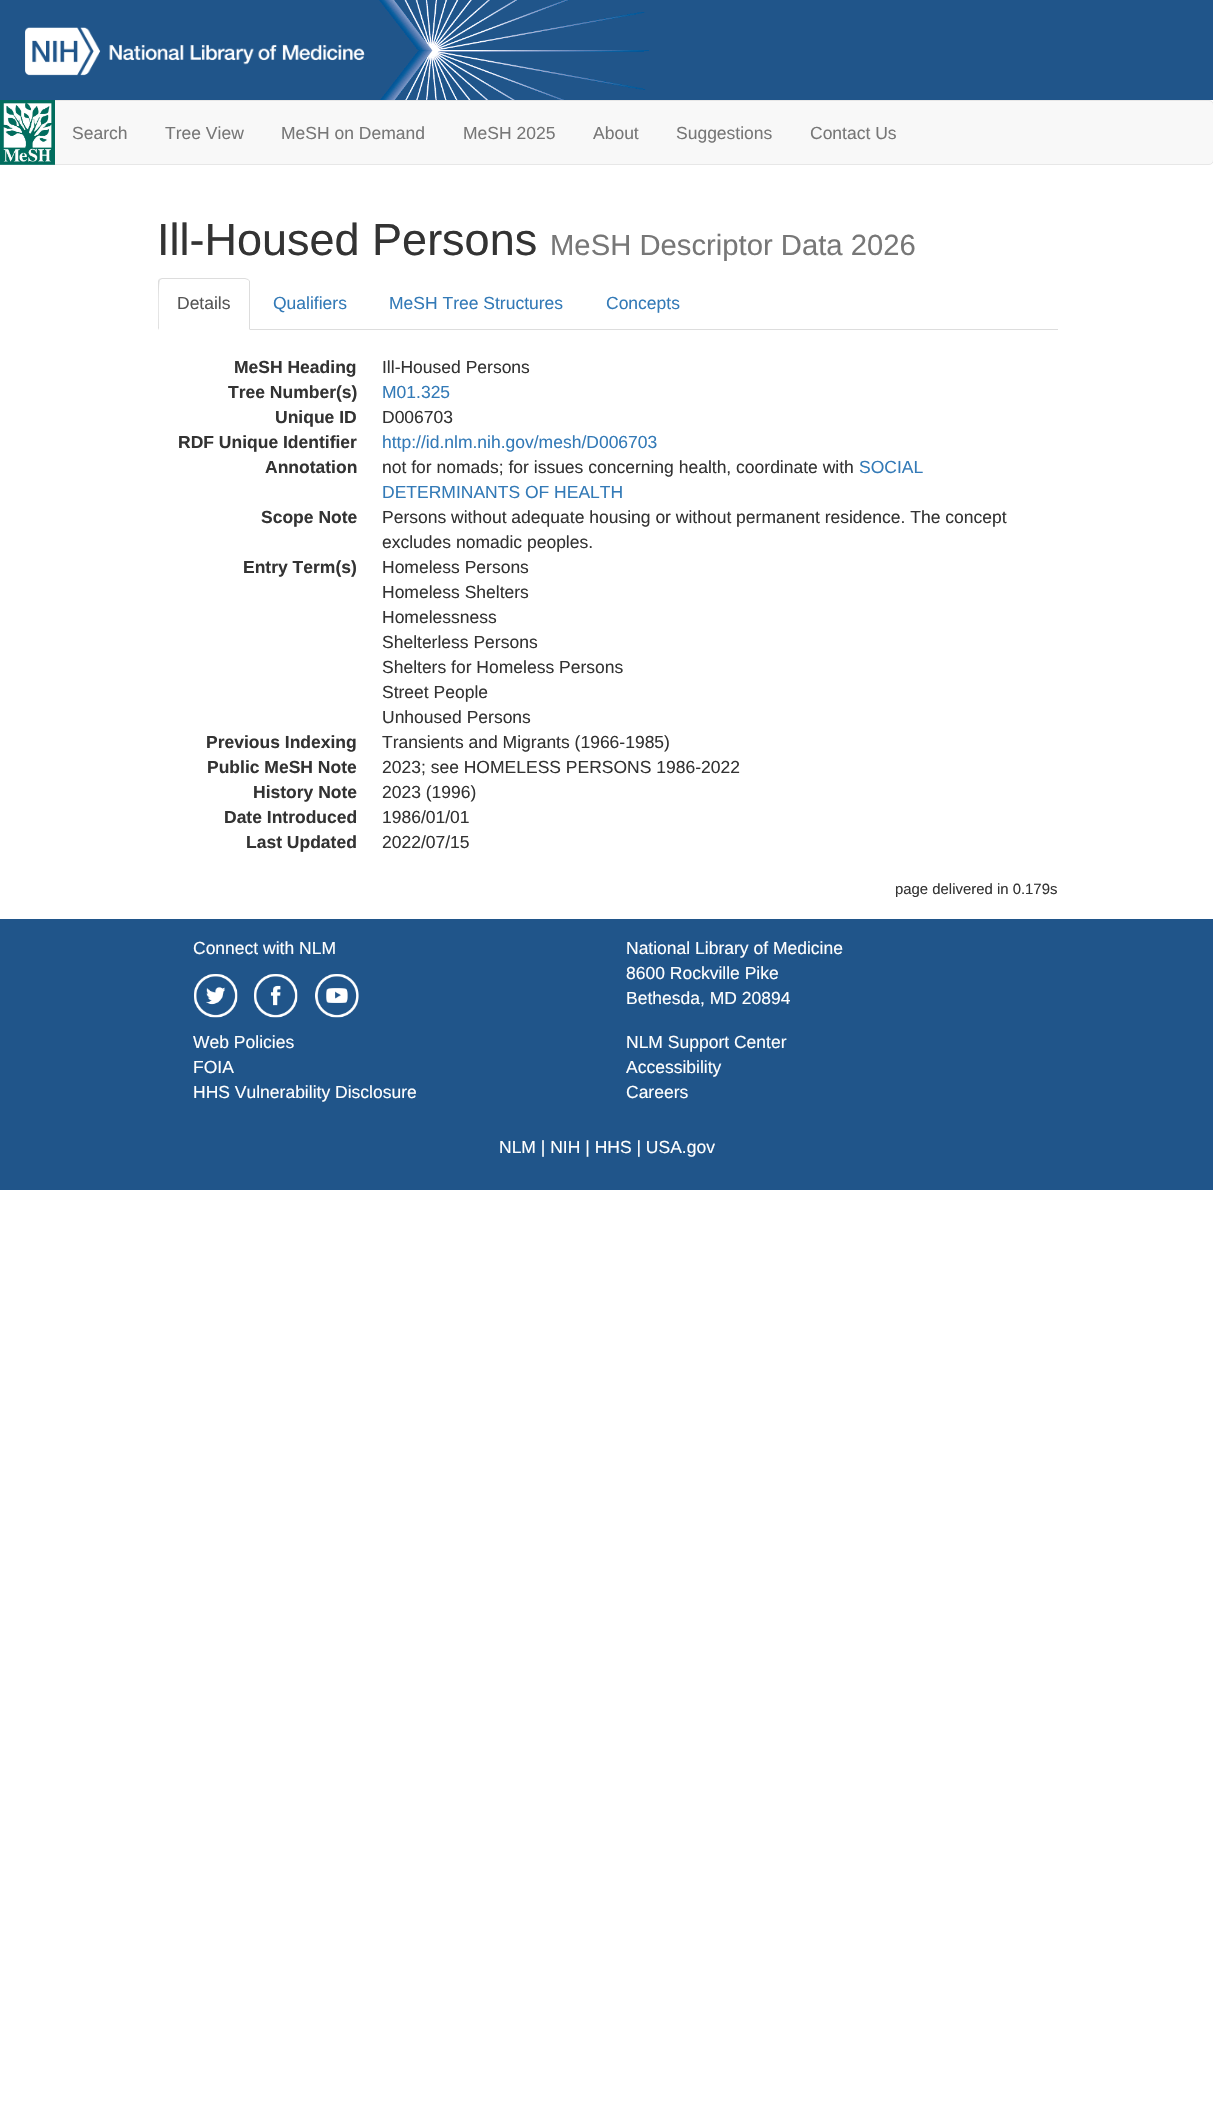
#include "include/core/SkBlurTypes.h"
#include "include/core/SkCanvas.h"
#include "include/core/SkData.h"
#include "include/core/SkFont.h"
#include "include/core/SkFontMgr.h"
#include "include/core/SkImage.h"
#include "include/core/SkMaskFilter.h"
#include "include/core/SkPaint.h"
#include "include/core/SkPathBuilder.h"
#include "include/core/SkTextBlob.h"
#include "include/effects/SkDashPathEffect.h"
#include "include/effects/SkGradientShader.h"
#include "include/utils/SkParsePath.h"

extern sk_sp<SkFontMgr> fontMgr;

static SkFont font(const char* family, int weight, float size, bool italic = false) {
    SkFontStyle style(weight, SkFontStyle::kNormal_Width,
        italic ? SkFontStyle::kItalic_Slant : SkFontStyle::kUpright_Slant);
    SkFont result(fontMgr->matchFamilyStyle(family, style), size);
    result.setSubpixel(true);
    return result;
}

static void drawLabel(SkCanvas* canvas, const char* s, float x, float y, const SkFont& font, SkColor color) {
    SkPaint ink(SkColor4f::FromColor(color));
    ink.setAntiAlias(true);
    canvas->drawString(s, x, y, font, ink);
}

static void fillRect(SkCanvas* canvas, float x, float y, float w, float h, SkColor color) {
    SkPaint ink(SkColor4f::FromColor(color));
    ink.setAntiAlias(true);
    canvas->drawRect(SkRect::MakeXYWH(x, y, w, h), ink);
}

static void drawPhoto(SkCanvas* canvas, const char* path, float x, float y, float w, float h) {
    auto image = SkImages::DeferredFromEncodedData(SkData::MakeFromFileName(path));
    canvas->drawImageRect(image, SkRect::MakeXYWH(x, y, w, h), SkSamplingOptions());
}

static SkPath parsePath(const char* data, bool evenOdd = false) {
    SkPath result = *SkParsePath::FromSVGString(data);
    if (evenOdd) result.setFillType(SkPathFillType::kEvenOdd);
    return result;
}

void draw(SkCanvas* canvas) {
    SkPaint paint;
    paint.setAntiAlias(true);
    canvas->clear(0xFFFFFFFF);
    fillRect(canvas, 0, 0, 1213, 100, 0xFF20558A);
    drawPhoto(canvas, "assets/img1.png", 379, 0, 270, 100);
    drawPhoto(canvas, "assets/img2.png", 25, 27, 340, 49);
    paint.setColor(0xFFF8F8F8);
    canvas->drawRoundRect(SkRect::MakeXYWH(0.5f, 100.5f, 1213, 64), 4.5f, 4.5f, paint);
    paint.setStroke(true);
    paint.setStrokeWidth(1);
    paint.setColor(0xFFE7E7E7);
    canvas->drawRoundRect(SkRect::MakeXYWH(0.5f, 100.5f, 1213, 64), 4.5f, 4.5f, paint);
    drawPhoto(canvas, "assets/img3.png", 0, 100, 55, 65);
    SkFont font1 = font("Liberation Sans", 400, 17.5f);
    drawLabel(canvas, "Search", 72, 139, font1, 0xFF777777);
    drawLabel(canvas, "Tree View", 165, 139, font1, 0xFF777777);
    drawLabel(canvas, "MeSH on Demand", 281, 139, font1, 0xFF777777);
    drawLabel(canvas, "MeSH 2025", 463, 139, font1, 0xFF777777);
    drawLabel(canvas, "About", 593, 139, font1, 0xFF777777);
    drawLabel(canvas, "Suggestions", 676, 139, font1, 0xFF777777);
    drawLabel(canvas, "Contact Us", 810, 139, font1, 0xFF777777);
    SkFont font2 = font("Liberation Sans", 400, 45);
    drawLabel(canvas, "Ill-Housed Persons", 157, 255, font2, 0xFF333333);
    SkFont font3 = font("Liberation Sans", 400, 29.25f);
    drawLabel(canvas, "MeSH Descriptor Data 2026", 550, 255, font3, 0xFF777777);
    fillRect(canvas, 250, 329, 808, 1, 0xFFDDDDDD);
    paint.setStroke(false);
    paint.setColor(0xFFDDDDDD);
    canvas->drawPath(parsePath("M162 278L159 279L160 280L162 279H245L248 280V279L245 278Z"), paint);
    canvas->drawPath(parsePath("M250 330V281L248 279V280L249 281V329Z"), paint);
    canvas->drawPath(parsePath("M159 279L158 281V330L159 328C159 323 158 282 160 280Z"), paint);
    drawLabel(canvas, "Details", 177, 309, font1, 0xFF555555);
    drawLabel(canvas, "Qualifiers", 273, 309, font1, 0xFF337AB7);
    drawLabel(canvas, "MeSH Tree Structures", 389, 309, font1, 0xFF337AB7);
    drawLabel(canvas, "Concepts", 606, 309, font1, 0xFF337AB7);
    SkFont font4 = font("Liberation Sans", 700, 17.5f);
    drawLabel(canvas, "MeSH Heading", 234, 373, font4, 0xFF333333);
    drawLabel(canvas, "Ill-Housed Persons", 382, 373, font1, 0xFF333333);
    drawLabel(canvas, "Tree Number(s)", 228, 398, font4, 0xFF333333);
    drawLabel(canvas, "M01.325", 382, 398, font1, 0xFF337AB7);
    drawLabel(canvas, "Unique ID", 275, 423, font4, 0xFF333333);
    drawLabel(canvas, "D006703", 382, 423, font1, 0xFF333333);
    drawLabel(canvas, "RDF Unique Identifier", 178, 448, font4, 0xFF333333);
    drawLabel(canvas, "http://id.nlm.nih.gov/mesh/D006703", 382, 448, font1, 0xFF337AB7);
    drawLabel(canvas, "Annotation", 265, 473, font4, 0xFF333333);
    drawLabel(canvas, "not for nomads; for issues concerning health, coordinate with", 382, 473, font1, 0xFF333333);
    drawLabel(canvas, "SOCIAL", 859, 473, font1, 0xFF337AB7);
    drawLabel(canvas, "DETERMINANTS OF HEALTH", 382, 498, font1, 0xFF337AB7);
    drawLabel(canvas, "Scope Note", 261, 523, font4, 0xFF333333);
    drawLabel(canvas, "Persons without adequate housing or without permanent residence. The concept", 382, 523, font1, 0xFF333333);
    drawLabel(canvas, "excludes nomadic peoples.", 382, 548, font1, 0xFF333333);
    drawLabel(canvas, "Entry Term(s)", 243, 573, font4, 0xFF333333);
    drawLabel(canvas, "Homeless Persons", 382, 573, font1, 0xFF333333);
    drawLabel(canvas, "Homeless Shelters", 382, 598, font1, 0xFF333333);
    drawLabel(canvas, "Homelessness", 382, 623, font1, 0xFF333333);
    drawLabel(canvas, "Shelterless Persons", 382, 648, font1, 0xFF333333);
    drawLabel(canvas, "Shelters for Homeless Persons", 382, 673, font1, 0xFF333333);
    drawLabel(canvas, "Street People", 382, 698, font1, 0xFF333333);
    drawLabel(canvas, "Unhoused Persons", 382, 723, font1, 0xFF333333);
    drawLabel(canvas, "Previous Indexing", 206, 748, font4, 0xFF333333);
    drawLabel(canvas, "Transients and Migrants (1966-1985)", 382, 748, font1, 0xFF333333);
    drawLabel(canvas, "Public MeSH Note", 207, 773, font4, 0xFF333333);
    drawLabel(canvas, "2023; see HOMELESS PERSONS 1986-2022", 382, 773, font1, 0xFF333333);
    drawLabel(canvas, "History Note", 253, 798, font4, 0xFF333333);
    drawLabel(canvas, "2023 (1996)", 382, 798, font1, 0xFF333333);
    drawLabel(canvas, "Date Introduced", 224, 823, font4, 0xFF333333);
    drawLabel(canvas, "1986/01/01", 382, 823, font1, 0xFF333333);
    drawLabel(canvas, "Last Updated", 246, 848, font4, 0xFF333333);
    drawLabel(canvas, "2022/07/15", 382, 848, font1, 0xFF333333);
    SkFont font5 = font("Liberation Sans", 400, 14.9f);
    drawLabel(canvas, "page delivered in 0.179s", 895, 894, font5, 0xFF333333);
    fillRect(canvas, 0, 919, 1213, 271, 0xFF20558A);
    drawLabel(canvas, "Connect with NLM", 193, 954, font1, 0xFFFFFFFF);
    drawPhoto(canvas, "assets/img4.png", 194, 974, 44, 44);
    drawPhoto(canvas, "assets/img5.png", 254, 974, 44, 44);
    drawPhoto(canvas, "assets/img6.png", 315, 974, 44, 44);
    drawLabel(canvas, "National Library of Medicine", 626, 954, font1, 0xFFFFFFFF);
    drawLabel(canvas, "8600 Rockville Pike", 626, 979, font1, 0xFFFFFFFF);
    drawLabel(canvas, "Bethesda, MD 20894", 626, 1004, font1, 0xFFFFFFFF);
    drawLabel(canvas, "Web Policies", 193, 1048, font1, 0xFFFFFFFF);
    drawLabel(canvas, "FOIA", 193, 1073, font1, 0xFFFFFFFF);
    drawLabel(canvas, "HHS Vulnerability Disclosure", 193, 1098, font1, 0xFFFFFFFF);
    drawLabel(canvas, "NLM Support Center", 626, 1048, font1, 0xFFFFFFFF);
    drawLabel(canvas, "Accessibility", 626, 1073, font1, 0xFFFFFFFF);
    drawLabel(canvas, "Careers", 626, 1098, font1, 0xFFFFFFFF);
    drawLabel(canvas, "NLM | NIH | HHS | USA.gov", 499, 1153, font1, 0xFFFFFFFF);
}
